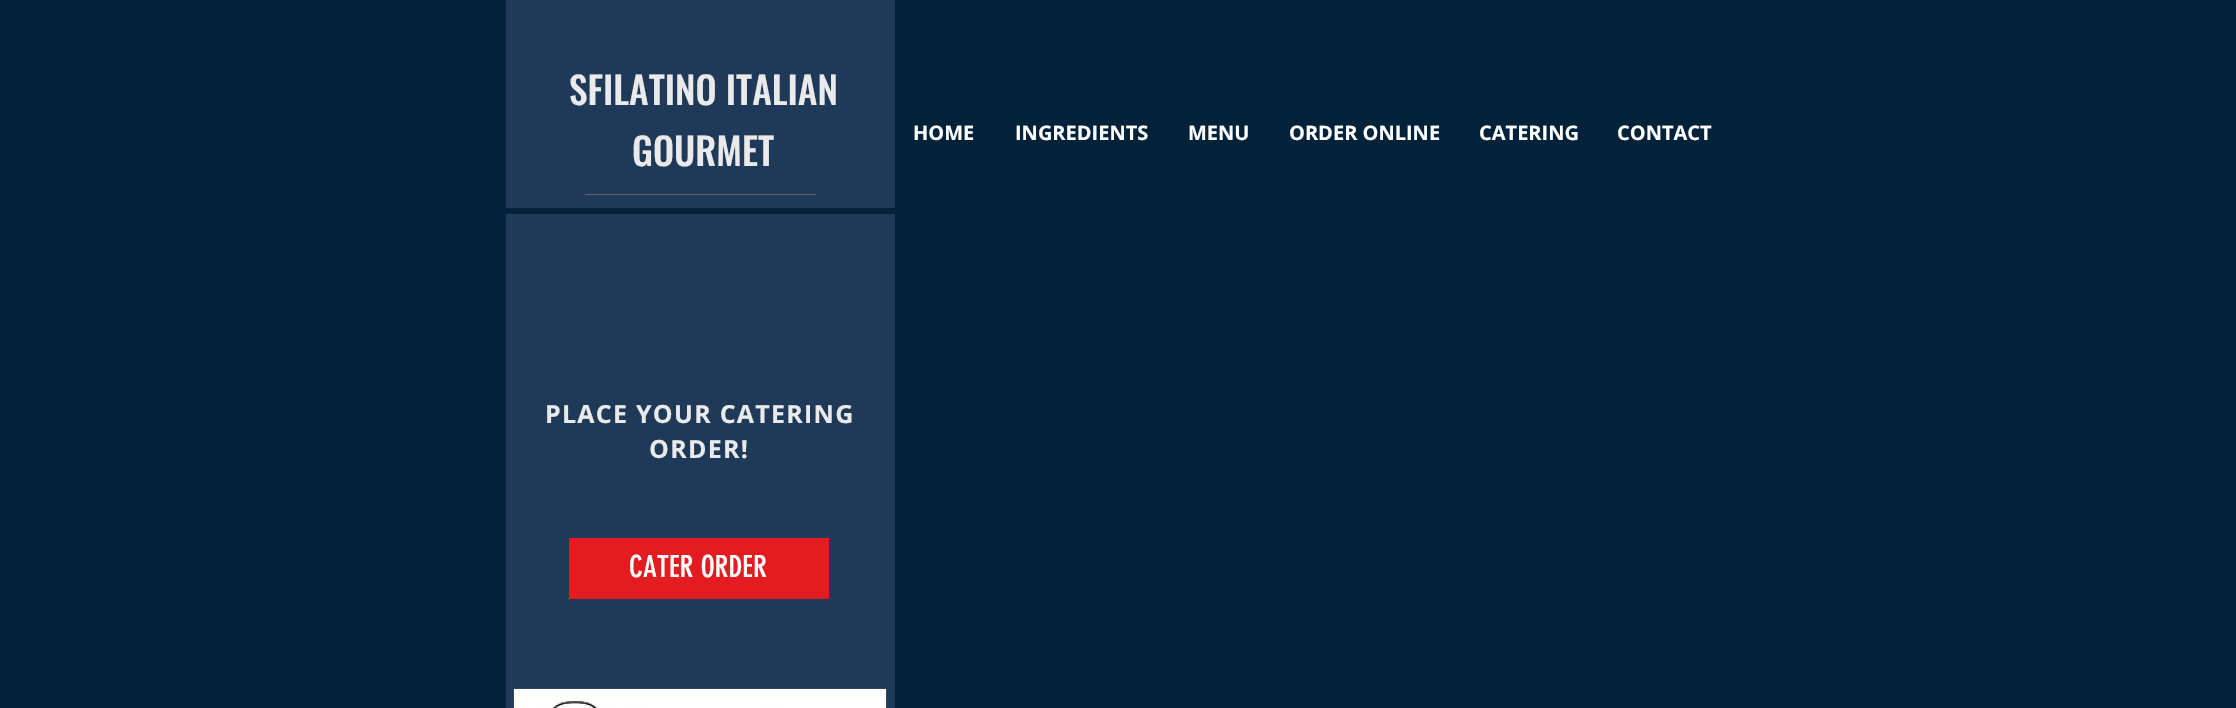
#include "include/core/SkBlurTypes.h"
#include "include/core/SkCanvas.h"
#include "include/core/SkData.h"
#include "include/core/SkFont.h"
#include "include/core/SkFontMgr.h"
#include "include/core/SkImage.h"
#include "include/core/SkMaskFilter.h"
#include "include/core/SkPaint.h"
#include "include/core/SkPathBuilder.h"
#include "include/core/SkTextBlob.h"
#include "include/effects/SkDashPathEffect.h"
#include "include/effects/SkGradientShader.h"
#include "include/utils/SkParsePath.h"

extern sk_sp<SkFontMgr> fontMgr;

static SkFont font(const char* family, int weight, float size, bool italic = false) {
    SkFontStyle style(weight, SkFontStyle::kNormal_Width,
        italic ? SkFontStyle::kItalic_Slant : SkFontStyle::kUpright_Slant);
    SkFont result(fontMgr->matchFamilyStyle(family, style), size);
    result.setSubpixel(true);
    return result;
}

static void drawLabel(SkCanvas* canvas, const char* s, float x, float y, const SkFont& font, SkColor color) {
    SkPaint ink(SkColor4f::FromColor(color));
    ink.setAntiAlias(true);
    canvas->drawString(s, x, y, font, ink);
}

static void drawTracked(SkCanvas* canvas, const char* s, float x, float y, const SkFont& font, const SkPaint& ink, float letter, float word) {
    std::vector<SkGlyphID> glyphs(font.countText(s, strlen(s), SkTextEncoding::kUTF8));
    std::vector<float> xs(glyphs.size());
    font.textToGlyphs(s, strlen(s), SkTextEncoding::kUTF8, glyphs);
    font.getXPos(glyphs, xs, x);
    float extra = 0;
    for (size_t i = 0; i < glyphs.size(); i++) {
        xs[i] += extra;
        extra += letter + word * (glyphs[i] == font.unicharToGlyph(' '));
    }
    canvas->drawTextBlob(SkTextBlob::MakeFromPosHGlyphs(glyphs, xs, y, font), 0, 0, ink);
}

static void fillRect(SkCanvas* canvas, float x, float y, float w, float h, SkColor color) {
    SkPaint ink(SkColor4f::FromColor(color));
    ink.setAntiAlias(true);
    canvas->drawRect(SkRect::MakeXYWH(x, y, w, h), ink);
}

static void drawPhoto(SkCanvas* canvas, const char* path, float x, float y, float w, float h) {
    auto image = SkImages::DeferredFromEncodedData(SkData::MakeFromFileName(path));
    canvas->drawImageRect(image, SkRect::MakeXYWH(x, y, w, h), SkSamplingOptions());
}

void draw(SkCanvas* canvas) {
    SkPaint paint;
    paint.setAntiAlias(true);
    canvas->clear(0xFF02223A);
    fillRect(canvas, 506, 0, 389, 208, 0xFF1F3959);
    SkFont font1 = font("Oswald", 500, 37.5f);
    drawLabel(canvas, "SFILATINO ITALIAN", 569, 105, font1, 0xFFEAEAEA);
    drawLabel(canvas, "GOURMET", 632, 166, font1, 0xFFEAEAEA);
    fillRect(canvas, 585, 194, 231, 1, 0xFF656565);
    SkFont font2 = font("Open Sans", 700, 20);
    drawLabel(canvas, "HOME", 913, 140, font2, 0xFFFFFFFF);
    drawLabel(canvas, "INGREDIENTS", 1015, 140, font2, 0xFFFFFFFF);
    drawLabel(canvas, "MENU", 1188, 140, font2, 0xFFFFFFFF);
    drawLabel(canvas, "ORDER ONLINE", 1289, 140, font2, 0xFFFFFFFF);
    drawLabel(canvas, "CATERING", 1479, 140, font2, 0xFFFFFFFF);
    drawLabel(canvas, "CONTACT", 1617, 140, font2, 0xFFFFFFFF);
    fillRect(canvas, 506, 214, 389, 494, 0xFF1F3959);
    SkFont font3 = font("Open Sans", 700, 25);
    paint.setColor(0xFFEAEAEA);
    drawTracked(canvas, "PLACE YOUR CATERING", 545, 423, font3, paint, 1.25f, 0);
    drawTracked(canvas, "ORDER!", 649, 458, font3, paint, 1.25f, 0);
    fillRect(canvas, 569, 538, 260, 61, 0xFFE21C21);
    SkFont font4 = font("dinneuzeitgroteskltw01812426", 400, 30);
    drawLabel(canvas, "CATER ORDER", 629, 577, font4, 0xFFFFFFFF);
    drawPhoto(canvas, "assets/img1.png", 513, 688, 374, 20);
}
